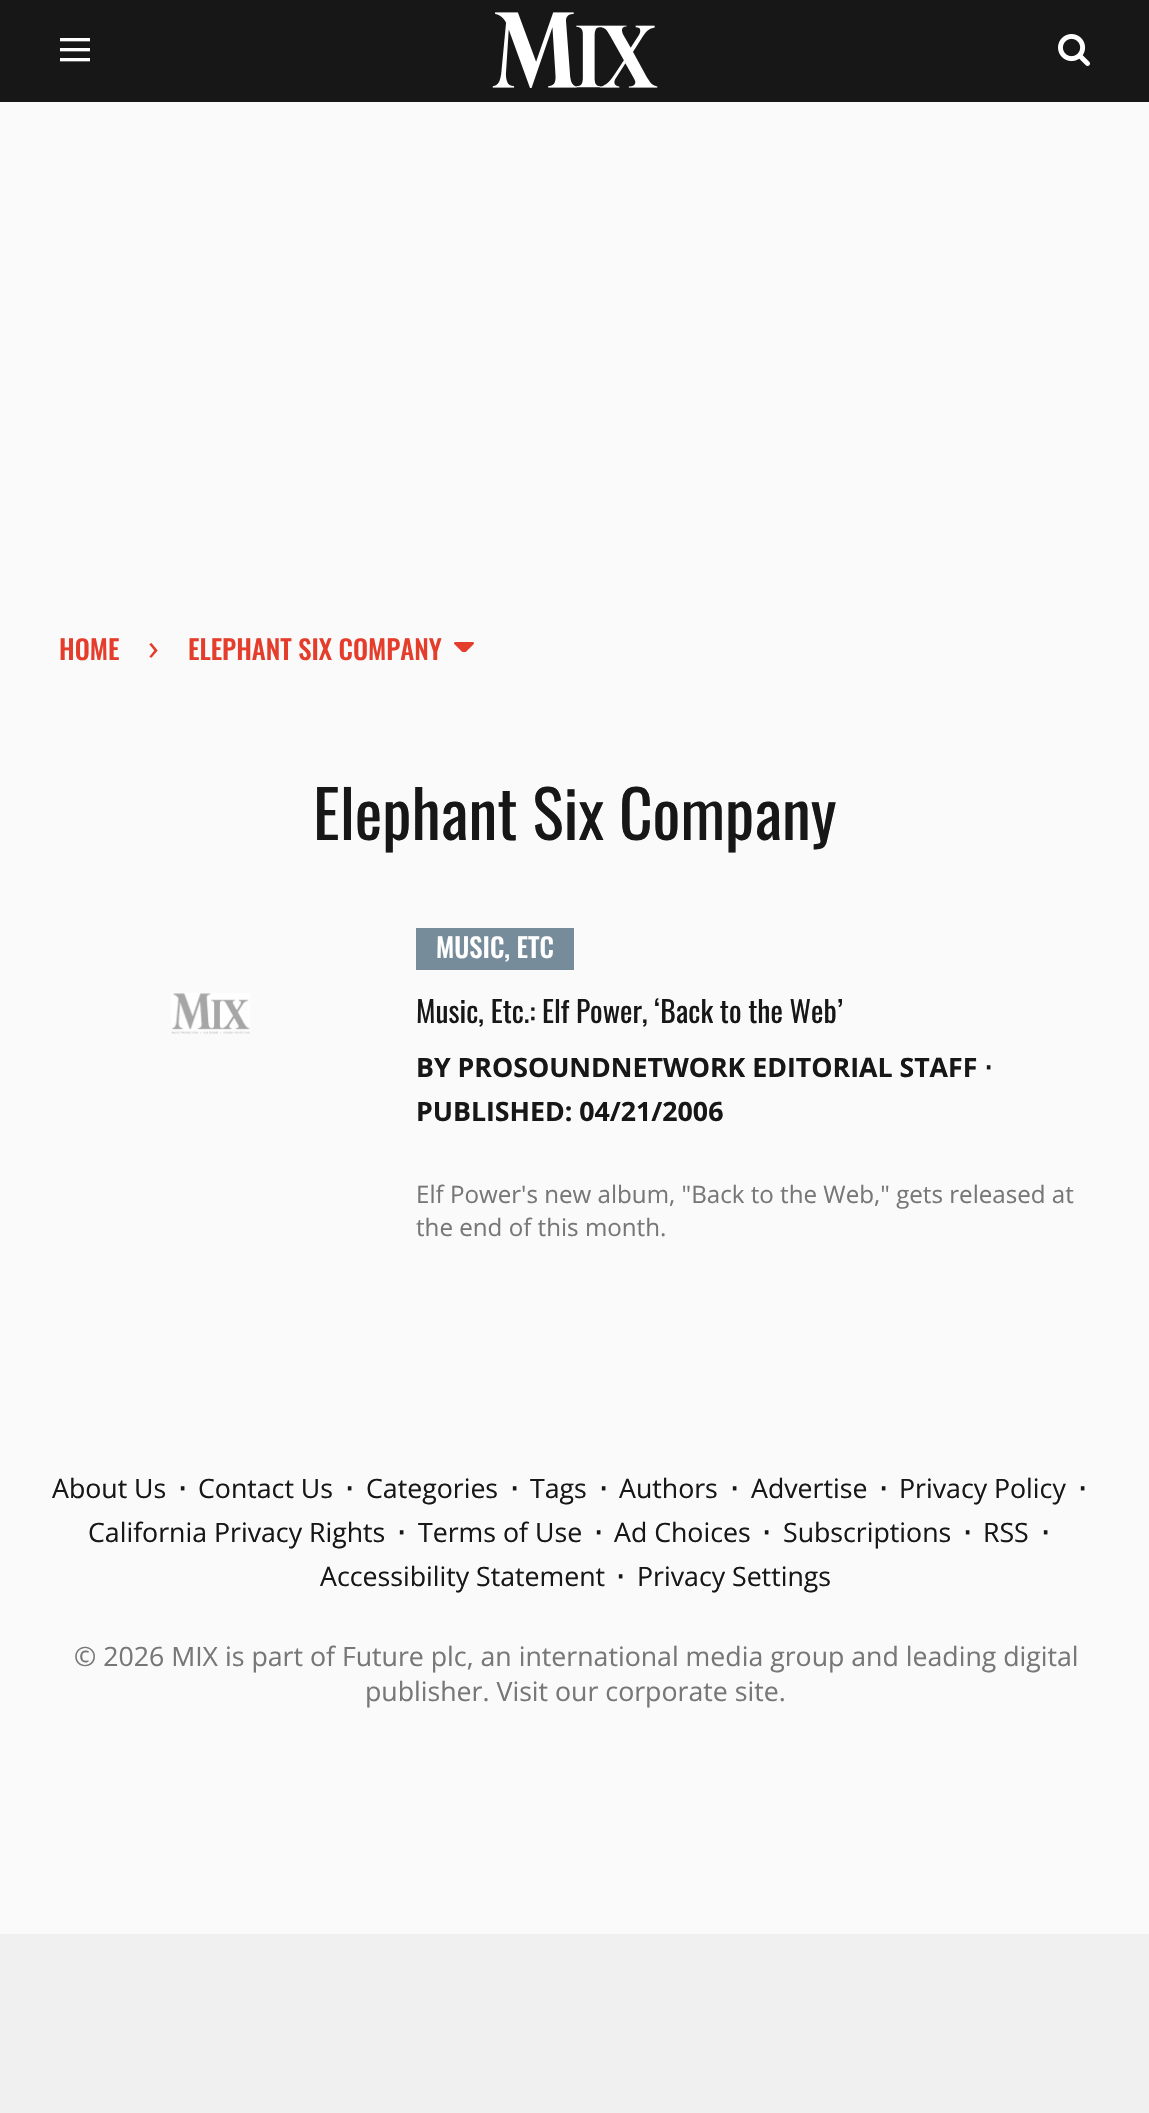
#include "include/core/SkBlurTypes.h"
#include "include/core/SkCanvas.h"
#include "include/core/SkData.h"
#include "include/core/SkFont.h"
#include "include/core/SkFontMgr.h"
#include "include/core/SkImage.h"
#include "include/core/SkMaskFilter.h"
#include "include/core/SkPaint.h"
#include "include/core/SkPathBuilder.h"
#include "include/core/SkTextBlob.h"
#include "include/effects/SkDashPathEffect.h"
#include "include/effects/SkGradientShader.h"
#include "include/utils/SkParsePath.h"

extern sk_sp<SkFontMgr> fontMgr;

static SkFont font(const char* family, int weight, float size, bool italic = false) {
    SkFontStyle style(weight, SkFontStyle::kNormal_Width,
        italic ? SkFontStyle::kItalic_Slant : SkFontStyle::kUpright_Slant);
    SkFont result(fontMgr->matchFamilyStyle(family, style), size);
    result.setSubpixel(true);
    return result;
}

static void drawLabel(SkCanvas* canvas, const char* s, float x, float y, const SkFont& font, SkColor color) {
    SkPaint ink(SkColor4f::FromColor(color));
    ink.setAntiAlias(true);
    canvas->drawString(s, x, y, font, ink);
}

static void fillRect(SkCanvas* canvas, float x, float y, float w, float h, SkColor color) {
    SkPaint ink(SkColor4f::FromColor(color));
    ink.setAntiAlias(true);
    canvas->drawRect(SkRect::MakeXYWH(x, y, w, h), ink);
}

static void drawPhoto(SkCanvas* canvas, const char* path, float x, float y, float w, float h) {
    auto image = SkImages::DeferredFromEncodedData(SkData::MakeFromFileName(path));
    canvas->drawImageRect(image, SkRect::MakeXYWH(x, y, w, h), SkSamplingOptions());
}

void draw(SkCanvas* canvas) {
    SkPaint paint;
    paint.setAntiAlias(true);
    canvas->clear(0xFFFAFAFA);
    fillRect(canvas, 0, 0, 1149, 102, 0xFF171717);
    drawPhoto(canvas, "assets/img1.png", 60, 38, 30, 24);
    drawPhoto(canvas, "assets/img2.png", 492, 12, 166, 76);
    drawPhoto(canvas, "assets/img3.png", 1058, 34, 32, 32);
    SkFont font1 = font("Oswald", 500, 26.7f);
    drawLabel(canvas, "HOME", 59, 660, font1, 0xFFE53D2B);
    SkFont font2 = font("Open Sans", 400, 36);
    drawLabel(canvas, "›", 148, 660, font2, 0xFFE53D2B);
    drawLabel(canvas, "ELEPHANT SIX COMPANY", 188, 660, font1, 0xFFE53D2B);
    drawPhoto(canvas, "assets/img4.png", 454, 642, 20, 10);
    SkFont font3 = font("Oswald", 400, 65.5f);
    drawLabel(canvas, "Elephant Six Company", 313, 840, font3, 0xFF171717);
    drawPhoto(canvas, "assets/img5.png", 171, 993, 79, 41);
    fillRect(canvas, 416, 928, 158, 42, 0xFF778C9B);
    drawLabel(canvas, "MUSIC, ETC", 436, 958, font1, 0xFFFFFFFF);
    SkFont font4 = font("Oswald", 400, 29.5f);
    drawLabel(canvas, "Music, Etc.: Elf Power, ‘Back to the Web’", 416, 1023, font4, 0xFF171717);
    SkFont font5 = font("Open Sans", 700, 26.7f);
    drawLabel(canvas, "BY PROSOUNDNETWORK EDITORIAL STAFF", 416, 1077, font5, 0xFF171717);
    SkFont font6 = font("DejaVu Sans", 700, 26.7f);
    drawLabel(canvas, "⋅", 984, 1077, font6, 0xFF171717);
    drawLabel(canvas, "PUBLISHED: 04/21/2006", 416, 1121, font5, 0xFF171717);
    SkFont font7 = font("Open Sans", 400, 24.15f);
    drawLabel(canvas, "Elf Power's new album, \"Back to the Web,\" gets released at", 416, 1203, font7, 0xFF777777);
    drawLabel(canvas, "the end of this month.", 416, 1236, font7, 0xFF777777);
    SkFont font8 = font("Open Sans", 400, 26.7f);
    drawLabel(canvas, "About Us", 52, 1498, font8, 0xFF171717);
    drawLabel(canvas, "⋅", 178, 1498, font6, 0xFF171717);
    drawLabel(canvas, "Contact Us", 198, 1498, font8, 0xFF171717);
    drawLabel(canvas, "⋅", 345, 1498, font6, 0xFF171717);
    drawLabel(canvas, "Categories", 366, 1498, font8, 0xFF171717);
    drawLabel(canvas, "⋅", 510, 1498, font6, 0xFF171717);
    drawLabel(canvas, "Tags", 530, 1498, font8, 0xFF171717);
    drawLabel(canvas, "⋅", 599, 1498, font6, 0xFF171717);
    drawLabel(canvas, "Authors", 619, 1498, font8, 0xFF171717);
    drawLabel(canvas, "⋅", 730, 1498, font6, 0xFF171717);
    drawLabel(canvas, "Advertise", 751, 1498, font8, 0xFF171717);
    drawLabel(canvas, "⋅", 879, 1498, font6, 0xFF171717);
    drawLabel(canvas, "Privacy Policy", 899, 1498, font8, 0xFF171717);
    drawLabel(canvas, "⋅", 1078, 1498, font6, 0xFF171717);
    drawLabel(canvas, "California Privacy Rights", 88, 1542, font8, 0xFF171717);
    drawLabel(canvas, "⋅", 397, 1542, font6, 0xFF171717);
    drawLabel(canvas, "Terms of Use", 418, 1542, font8, 0xFF171717);
    drawLabel(canvas, "⋅", 594, 1542, font6, 0xFF171717);
    drawLabel(canvas, "Ad Choices", 614, 1542, font8, 0xFF171717);
    drawLabel(canvas, "⋅", 762, 1542, font6, 0xFF171717);
    drawLabel(canvas, "Subscriptions", 783, 1542, font8, 0xFF171717);
    drawLabel(canvas, "⋅", 963, 1542, font6, 0xFF171717);
    drawLabel(canvas, "RSS", 983, 1542, font8, 0xFF171717);
    drawLabel(canvas, "⋅", 1041, 1542, font6, 0xFF171717);
    drawLabel(canvas, "Accessibility Statement", 320, 1586, font8, 0xFF171717);
    drawLabel(canvas, "⋅", 616, 1586, font6, 0xFF171717);
    drawLabel(canvas, "Privacy Settings", 637, 1586, font8, 0xFF171717);
    drawLabel(canvas, "© 2026 MIX is part of Future plc, an international media group and leading digital", 74, 1666, font8, 0xFF777777);
    drawLabel(canvas, "publisher. Visit our corporate site.", 365, 1701, font8, 0xFF777777);
    fillRect(canvas, 0, 1934, 1149, 179, 0xFFF0F0F0);
}
